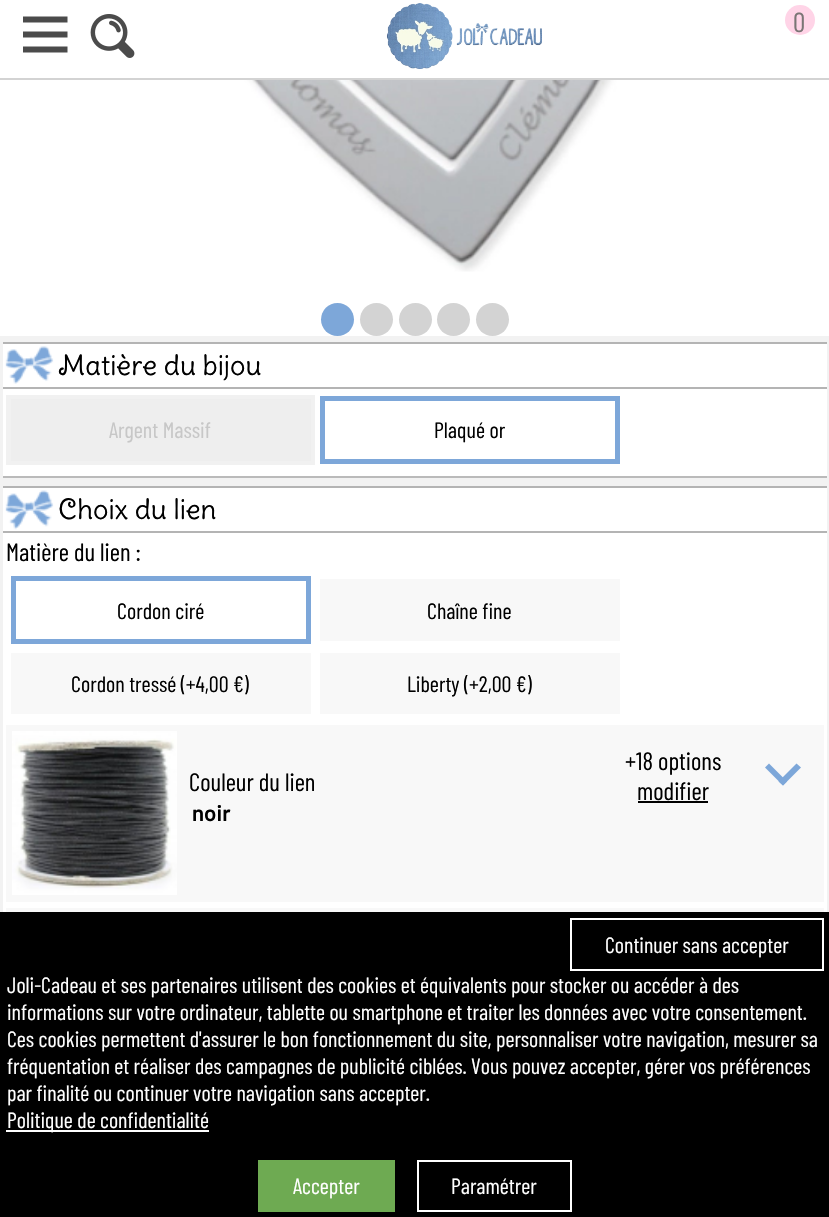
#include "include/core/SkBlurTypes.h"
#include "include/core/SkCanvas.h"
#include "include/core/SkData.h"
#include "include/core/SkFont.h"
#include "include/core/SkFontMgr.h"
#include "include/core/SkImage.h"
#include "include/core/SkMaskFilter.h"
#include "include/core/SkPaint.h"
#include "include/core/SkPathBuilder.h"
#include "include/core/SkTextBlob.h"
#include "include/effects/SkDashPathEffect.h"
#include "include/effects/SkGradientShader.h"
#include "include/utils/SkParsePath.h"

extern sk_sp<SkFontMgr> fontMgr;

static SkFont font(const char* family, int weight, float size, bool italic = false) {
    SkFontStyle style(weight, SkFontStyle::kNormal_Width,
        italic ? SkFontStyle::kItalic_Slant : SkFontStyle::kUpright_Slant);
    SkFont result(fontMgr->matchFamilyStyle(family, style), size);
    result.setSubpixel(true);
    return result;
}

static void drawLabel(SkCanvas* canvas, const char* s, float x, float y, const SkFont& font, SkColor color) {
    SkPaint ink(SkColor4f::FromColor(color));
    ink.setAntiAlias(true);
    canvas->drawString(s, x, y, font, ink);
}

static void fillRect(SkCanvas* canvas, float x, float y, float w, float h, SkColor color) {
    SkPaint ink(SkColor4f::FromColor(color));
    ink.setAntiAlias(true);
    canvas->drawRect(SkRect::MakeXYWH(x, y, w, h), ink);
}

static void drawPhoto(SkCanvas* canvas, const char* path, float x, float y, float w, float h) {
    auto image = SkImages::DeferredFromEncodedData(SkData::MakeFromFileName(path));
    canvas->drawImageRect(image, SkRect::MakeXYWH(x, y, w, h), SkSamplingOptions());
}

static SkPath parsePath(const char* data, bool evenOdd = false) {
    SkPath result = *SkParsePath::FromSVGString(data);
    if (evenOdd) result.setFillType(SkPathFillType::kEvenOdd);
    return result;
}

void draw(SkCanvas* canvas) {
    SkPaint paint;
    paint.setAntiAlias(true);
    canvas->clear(0xFFF2F2F2);
    fillRect(canvas, 0, 0, 829, 78, 0xFFFFFFFF);
    fillRect(canvas, 0, 78, 829, 2, 0xFFD3D3D3);
    canvas->save();
    canvas->clipRect(SkRect::MakeXYWH(23, 12, 45, 45));
    paint.setStroke(true);
    paint.setStrokeWidth(6);
    paint.setColor(0xFF4B4B4B);
    canvas->drawPath(parsePath("M22.5 19.5H67.5M22.5 34.5H67.5M22.5 49.5H67.5"), paint);
    canvas->restore();
    drawPhoto(canvas, "assets/img1.png", 90, 14, 45, 44);
    drawPhoto(canvas, "assets/img2.png", 386, 3, 156, 66);
    paint.setStroke(false);
    paint.setColor(0xFFFFD4E7);
    canvas->drawCircle(800, 20, 15, paint);
    SkFont font1 = font("Barlow Condensed", 400, 27.5f);
    drawLabel(canvas, "0", 793, 32, font1, 0xFF7A7575);
    fillRect(canvas, 0, 80, 829, 256, 0xFFFFFFFF);
    drawPhoto(canvas, "assets/img3.png", 196, 80, 457, 192);
    paint.setColor(0xFF7DA7D9);
    canvas->drawCircle(337.5f, 319.5f, 16.5f, paint);
    paint.setColor(0xFFD3D3D3);
    canvas->drawCircle(376.5f, 319.5f, 16.5f, paint);
    canvas->drawCircle(415.5f, 319.5f, 16.5f, paint);
    canvas->drawCircle(453.5f, 319.5f, 16.5f, paint);
    canvas->drawCircle(492.5f, 319.5f, 16.5f, paint);
    fillRect(canvas, 3, 389, 824, 87, 0xFFFFFFFF);
    fillRect(canvas, 6, 395, 309, 70, 0xFFF1F1F1);
    fillRect(canvas, 3, 476, 824, 2, 0xFFBABABA);
    fillRect(canvas, 3, 344, 824, 43, 0xFFFFFFFF);
    fillRect(canvas, 3, 342, 824, 2, 0xFFB4B4B4);
    fillRect(canvas, 3, 387, 824, 2, 0xFFB4B4B4);
    drawPhoto(canvas, "assets/img4.png", 5, 346, 49, 38);
    SkFont font2 = font("Delius Swash Caps", 400, 27.5f);
    drawLabel(canvas, "Matière du bijou", 58, 375, font2, 0xFF000000);
    fillRect(canvas, 11, 399, 300, 62, 0xFFEEEEEE);
    SkFont font3 = font("Barlow Condensed", 400, 22.25f);
    drawLabel(canvas, "Argent Massif", 109, 438, font3, 0xFFC7C7C7);
    paint.setStroke(true);
    paint.setStrokeWidth(5);
    paint.setColor(0xFF7DA7D9);
    canvas->drawRect(SkRect::MakeXYWH(322.5f, 398.5f, 295, 63), paint);
    drawLabel(canvas, "Plaqué or", 434, 438, font3, 0xFF000000);
    fillRect(canvas, 3, 533, 824, 379, 0xFFFFFFFF);
    fillRect(canvas, 3, 488, 824, 43, 0xFFFFFFFF);
    fillRect(canvas, 3, 486, 824, 2, 0xFFB4B4B4);
    fillRect(canvas, 3, 531, 824, 2, 0xFFB4B4B4);
    drawPhoto(canvas, "assets/img5.png", 5, 490, 49, 40);
    drawLabel(canvas, "Choix du lien", 58, 519, font2, 0xFF000000);
    SkFont font4 = font("Barlow Condensed", 400, 25);
    drawLabel(canvas, "Matière du lien :", 6, 561, font4, 0xFF000000);
    canvas->drawRect(SkRect::MakeXYWH(13.5f, 578.5f, 295, 63), paint);
    drawLabel(canvas, "Cordon ciré", 117, 619, font3, 0xFF000000);
    fillRect(canvas, 320, 579, 300, 62, 0xFFF8F8F8);
    drawLabel(canvas, "Chaîne fine", 427, 619, font3, 0xFF000000);
    fillRect(canvas, 11, 653, 300, 61, 0xFFF8F8F8);
    drawLabel(canvas, "Cordon tressé (+4,00 €)", 71, 692, font3, 0xFF000000);
    fillRect(canvas, 320, 653, 300, 61, 0xFFF8F8F8);
    drawLabel(canvas, "Liberty (+2,00 €)", 407, 692, font3, 0xFF000000);
    fillRect(canvas, 6, 725, 818, 177, 0xFFF8F8F8);
    drawLabel(canvas, "+18", 625, 770, font4, 0xFF000000);
    drawLabel(canvas, "options", 658, 770, font4, 0xFF000000);
    drawLabel(canvas, "modifier", 637, 800, font4, 0xFF000000);
    fillRect(canvas, 638, 801, 70, 2, 0xFF000000);
    paint.setStroke(false);
    canvas->drawPath(parsePath("M778.5 781.5L796.5 763.5L801 767.5L783 785.5Z"), paint);
    canvas->drawPath(parsePath("M765 767.5L769 763.5L787 781.5L783 785.5Z"), paint);
    drawPhoto(canvas, "assets/img6.png", 12, 731, 165, 164);
    SkFont font5 = font("Barlow", 600, 22.25f);
    drawLabel(canvas, "noir", 192, 821, font5, 0xFF000000);
    drawLabel(canvas, "Couleur du lien", 189, 791, font4, 0xFF000000);
    fillRect(canvas, 6, 908, 818, 4, 0xFFF8F8F8);
    fillRect(canvas, 0, 912, 829, 305, 0xFF000000);
    paint.setStroke(true);
    paint.setStrokeWidth(2);
    paint.setColor(0xFFFFFFFF);
    canvas->drawRect(SkRect::MakeXYWH(571, 919, 252, 51), paint);
    SkFont font6 = font("Barlow Condensed", 400, 22.1f);
    drawLabel(canvas, "Continuer sans accepter", 605, 953, font6, 0xFFFFFFFF);
    drawLabel(canvas, "Joli-Cadeau et ses partenaires utilisent des cookies et équivalents pour stocker ou accéder à des", 7, 993, font6, 0xFFFFFFFF);
    drawLabel(canvas, "informations sur votre ordinateur, tablette ou smartphone et traiter les données avec votre consentement.", 7, 1020, font6, 0xFFFFFFFF);
    drawLabel(canvas, "Ces cookies permettent d'assurer le bon fonctionnement du site, personnaliser votre navigation, mesurer sa", 7, 1047, font6, 0xFFFFFFFF);
    drawLabel(canvas, "fréquentation et réaliser des campagnes de publicité ciblées. Vous pouvez accepter, gérer vos préférences", 7, 1074, font6, 0xFFFFFFFF);
    drawLabel(canvas, "par finalité ou continuer votre navigation sans accepter.", 7, 1101, font6, 0xFFFFFFFF);
    fillRect(canvas, 6, 1130, 203, 2, 0xFFFFFFFF);
    drawLabel(canvas, "Politique de confidentialité", 7, 1128, font6, 0xFFFFFFFF);
    fillRect(canvas, 258, 1160, 137, 52, 0xFF6EAA52);
    drawLabel(canvas, "Accepter", 293, 1194, font6, 0xFFFFFFFF);
    canvas->drawRect(SkRect::MakeXYWH(418, 1161, 153, 50), paint);
    drawLabel(canvas, "Paramétrer", 451, 1194, font6, 0xFFFFFFFF);
}
